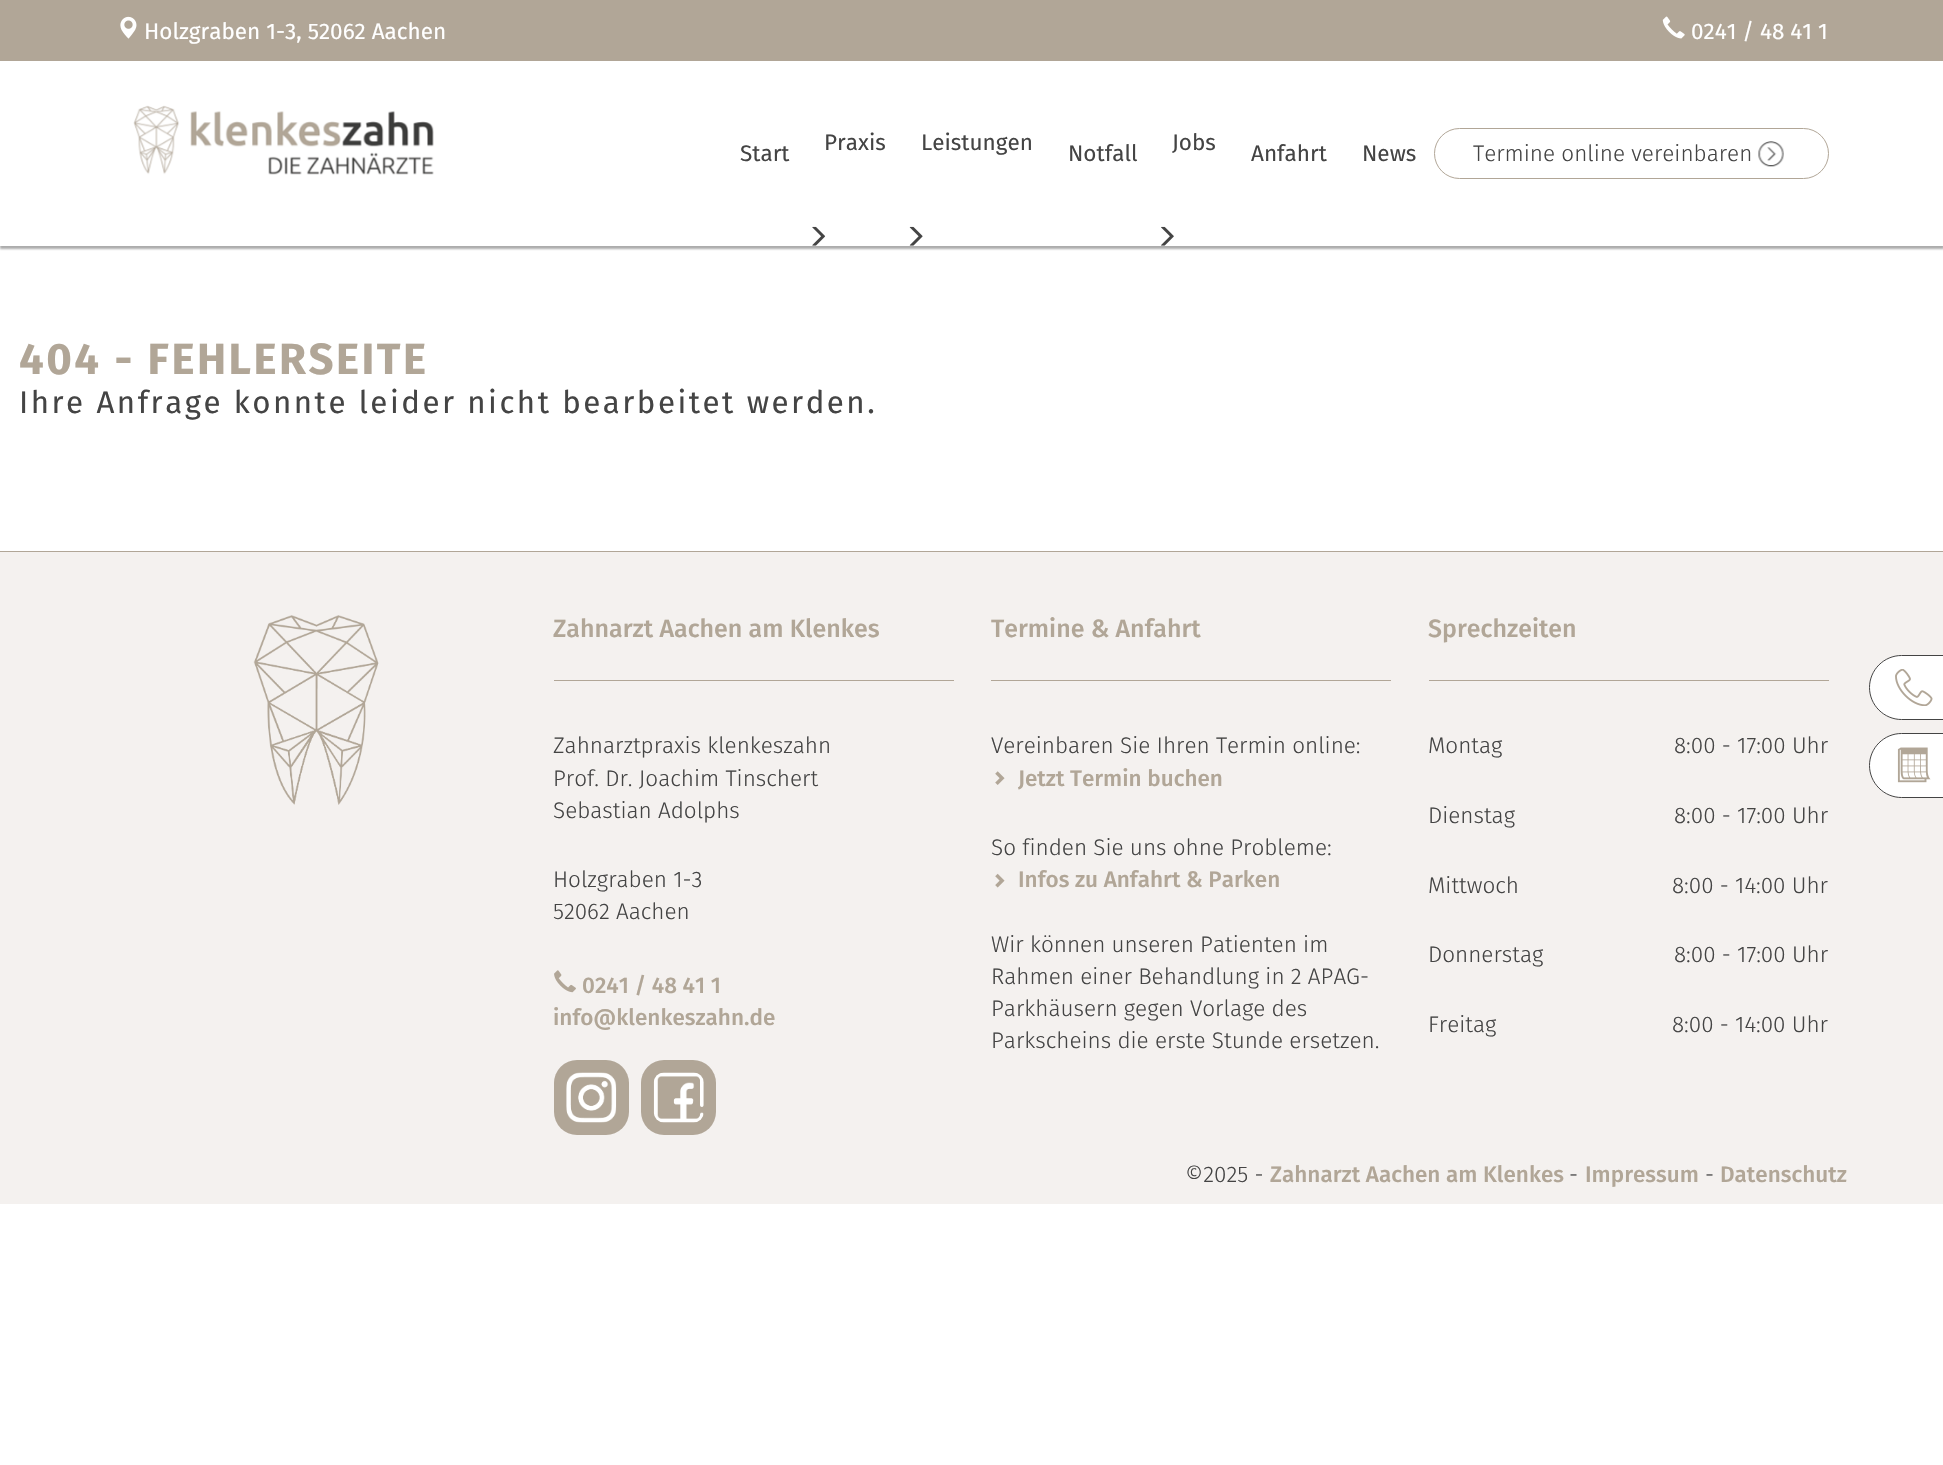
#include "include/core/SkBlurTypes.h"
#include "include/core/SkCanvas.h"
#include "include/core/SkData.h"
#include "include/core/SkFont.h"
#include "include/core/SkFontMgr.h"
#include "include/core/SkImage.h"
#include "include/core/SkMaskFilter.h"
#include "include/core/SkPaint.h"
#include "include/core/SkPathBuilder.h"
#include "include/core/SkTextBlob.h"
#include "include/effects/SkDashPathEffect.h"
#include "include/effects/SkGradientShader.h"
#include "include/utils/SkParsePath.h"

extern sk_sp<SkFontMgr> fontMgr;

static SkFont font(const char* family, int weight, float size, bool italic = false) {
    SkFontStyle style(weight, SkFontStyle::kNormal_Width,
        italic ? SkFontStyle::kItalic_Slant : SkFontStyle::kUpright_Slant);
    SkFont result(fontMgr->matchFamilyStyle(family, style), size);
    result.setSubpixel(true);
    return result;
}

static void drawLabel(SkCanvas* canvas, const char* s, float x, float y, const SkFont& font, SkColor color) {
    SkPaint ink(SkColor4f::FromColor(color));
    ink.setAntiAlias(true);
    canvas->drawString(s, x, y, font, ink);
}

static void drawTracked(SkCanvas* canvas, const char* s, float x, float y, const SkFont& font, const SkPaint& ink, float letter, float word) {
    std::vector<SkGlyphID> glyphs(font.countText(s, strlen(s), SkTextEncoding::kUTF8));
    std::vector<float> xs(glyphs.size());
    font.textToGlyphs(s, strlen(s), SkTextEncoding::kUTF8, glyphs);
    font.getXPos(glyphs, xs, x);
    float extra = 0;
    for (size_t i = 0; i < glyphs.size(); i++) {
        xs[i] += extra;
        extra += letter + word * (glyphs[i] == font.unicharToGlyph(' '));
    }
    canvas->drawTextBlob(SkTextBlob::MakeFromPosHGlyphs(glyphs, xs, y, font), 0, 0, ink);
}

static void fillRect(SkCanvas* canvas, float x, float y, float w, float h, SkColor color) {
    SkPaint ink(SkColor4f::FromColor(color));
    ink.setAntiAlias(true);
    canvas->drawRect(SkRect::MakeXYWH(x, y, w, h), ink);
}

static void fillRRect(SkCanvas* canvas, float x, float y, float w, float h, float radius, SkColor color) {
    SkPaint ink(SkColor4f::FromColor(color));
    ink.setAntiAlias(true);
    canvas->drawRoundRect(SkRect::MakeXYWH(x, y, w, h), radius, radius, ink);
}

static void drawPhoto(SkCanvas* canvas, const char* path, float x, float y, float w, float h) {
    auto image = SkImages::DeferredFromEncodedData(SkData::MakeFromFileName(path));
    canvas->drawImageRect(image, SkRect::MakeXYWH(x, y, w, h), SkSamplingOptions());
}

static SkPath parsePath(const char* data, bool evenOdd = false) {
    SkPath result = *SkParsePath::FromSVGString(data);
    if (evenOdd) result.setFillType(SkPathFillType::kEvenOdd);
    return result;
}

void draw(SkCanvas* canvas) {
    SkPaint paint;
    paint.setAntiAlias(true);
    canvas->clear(0xFFFFFFFF);
    canvas->save();
    canvas->clipRect(SkRect::MakeXYWH(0, 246, 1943, 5));
    paint.setColor(0xFFACACAC);
    paint.setMaskFilter(SkMaskFilter::MakeBlur(kNormal_SkBlurStyle, 1));
    canvas->drawRect(SkRect::MakeXYWH(0, 3, 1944, 246), paint);
    paint.setMaskFilter(nullptr);
    canvas->restore();
    fillRect(canvas, 0, 0, 1943, 61, 0xFFB1A697);
    drawPhoto(canvas, "assets/img1.png", 120, 16, 17, 23);
    SkFont font1 = font("Fira Sans", 400, 22.5f);
    drawLabel(canvas, "Holzgraben 1-3, 52062 Aachen", 144, 39, font1, 0xFFFFFFFF);
    drawPhoto(canvas, "assets/img2.png", 1662, 16, 23, 23);
    drawLabel(canvas, "0241 / 48 41 1", 1691, 39, font1, 0xFFFFFFFF);
    drawPhoto(canvas, "assets/img3.png", 133, 105, 301, 70);
    drawLabel(canvas, "Start", 740, 161, font1, 0xFF444444);
    drawLabel(canvas, "Praxis", 824, 150, font1, 0xFF444444);
    drawPhoto(canvas, "assets/img4.png", 812, 226, 14, 20);
    drawLabel(canvas, "Leistungen", 921, 150, font1, 0xFF444444);
    drawPhoto(canvas, "assets/img5.png", 909, 226, 14, 20);
    drawLabel(canvas, "Notfall", 1068, 161, font1, 0xFF444444);
    drawLabel(canvas, "Jobs", 1172, 150, font1, 0xFF444444);
    drawPhoto(canvas, "assets/img6.png", 1161, 226, 13, 20);
    drawLabel(canvas, "Anfahrt", 1251, 161, font1, 0xFF444444);
    drawLabel(canvas, "News", 1362, 161, font1, 0xFF444444);
    paint.setStroke(true);
    paint.setStrokeWidth(1);
    paint.setColor(0xFFB1A697);
    canvas->drawRoundRect(SkRect::MakeXYWH(1434.5f, 128.5f, 394, 50), 25, 25, paint);
    SkFont font2 = font("Fira Sans", 300, 22.5f);
    drawLabel(canvas, "Termine online vereinbaren", 1473, 161, font2, 0xFF444444);
    drawPhoto(canvas, "assets/img7.png", 1758, 141, 26, 26);
    SkFont font3 = font("Fira Sans", 700, 43.75f);
    paint.setStroke(false);
    drawTracked(canvas, "404 - FEHLERSEITE", 19, 374, font3, paint, 2.5f, 0);
    SkFont font4 = font("Fira Sans", 400, 31.25f);
    paint.setColor(0xFF444444);
    drawTracked(canvas, "Ihre Anfrage konnte leider nicht bearbeitet werden.", 19, 413, font4, paint, 2.5f, 0);
    fillRect(canvas, 0, 552, 1943, 652, 0xFFF4F1EF);
    fillRect(canvas, 0, 551, 1943, 1, 0xFFB1A697);
    drawPhoto(canvas, "assets/img8.png", 253, 615, 126, 190);
    fillRect(canvas, 554, 680, 400, 1, 0xFFB1A697);
    SkFont font5 = font("Fira Sans", 500, 25);
    drawLabel(canvas, "Zahnarzt Aachen am Klenkes", 553, 637, font5, 0xFFB1A697);
    drawLabel(canvas, "Zahnarztpraxis klenkeszahn", 553, 753, font2, 0xFF444444);
    drawLabel(canvas, "Prof. Dr. Joachim Tinschert", 553, 786, font2, 0xFF444444);
    drawLabel(canvas, "Sebastian Adolphs", 553, 818, font2, 0xFF444444);
    drawLabel(canvas, "Holzgraben 1-3", 553, 887, font2, 0xFF444444);
    drawLabel(canvas, "52062 Aachen", 553, 919, font2, 0xFF444444);
    drawPhoto(canvas, "assets/img9.png", 554, 970, 22, 23);
    SkFont font6 = font("Fira Sans", 500, 22.5f);
    drawLabel(canvas, "0241 / 48 41 1", 582, 993, font6, 0xFFB1A697);
    drawLabel(canvas, "info@klenkeszahn.de", 553, 1025, font6, 0xFFB1A697);
    fillRRect(canvas, 554, 1060, 75, 75, 23, 0xFFB1A697);
    drawPhoto(canvas, "assets/img10.png", 566, 1072, 51, 51);
    fillRRect(canvas, 641, 1060, 75, 75, 23, 0xFFB1A697);
    drawPhoto(canvas, "assets/img11.png", 653, 1072, 51, 51);
    fillRect(canvas, 991, 680, 400, 1, 0xFFB1A697);
    drawLabel(canvas, "Termine & Anfahrt", 991, 637, font5, 0xFFB1A697);
    drawLabel(canvas, "Vereinbaren Sie Ihren Termin online:", 991, 753, font2, 0xFF444444);
    drawPhoto(canvas, "assets/img12.png", 995, 771, 10, 14);
    drawLabel(canvas, "Jetzt Termin buchen", 1018, 786, font6, 0xFFB1A697);
    drawLabel(canvas, "So finden Sie uns ohne Probleme:", 991, 855, font2, 0xFF444444);
    drawPhoto(canvas, "assets/img13.png", 995, 873, 10, 15);
    drawLabel(canvas, "Infos zu Anfahrt & Parken", 1018, 887, font6, 0xFFB1A697);
    drawLabel(canvas, "Wir können unseren Patienten im", 991, 952, font2, 0xFF444444);
    drawLabel(canvas, "Rahmen einer Behandlung in 2 APAG-", 991, 984, font2, 0xFF444444);
    drawLabel(canvas, "Parkhäusern gegen Vorlage des", 991, 1016, font2, 0xFF444444);
    drawLabel(canvas, "Parkscheins die erste Stunde ersetzen.", 991, 1048, font2, 0xFF444444);
    fillRect(canvas, 1429, 680, 400, 1, 0xFFB1A697);
    drawLabel(canvas, "Sprechzeiten", 1428, 637, font5, 0xFFB1A697);
    drawLabel(canvas, "Montag", 1428, 753, font2, 0xFF444444);
    drawLabel(canvas, "8:00 - 17:00 Uhr", 1674, 753, font2, 0xFF444444);
    drawLabel(canvas, "Dienstag", 1428, 823, font2, 0xFF444444);
    drawLabel(canvas, "8:00 - 17:00 Uhr", 1674, 823, font2, 0xFF444444);
    drawLabel(canvas, "Mittwoch", 1428, 893, font2, 0xFF444444);
    drawLabel(canvas, "8:00 - 14:00 Uhr", 1672, 893, font2, 0xFF444444);
    drawLabel(canvas, "Donnerstag", 1428, 962, font2, 0xFF444444);
    drawLabel(canvas, "8:00 - 17:00 Uhr", 1674, 962, font2, 0xFF444444);
    drawLabel(canvas, "Freitag", 1428, 1032, font2, 0xFF444444);
    drawLabel(canvas, "8:00 - 14:00 Uhr", 1672, 1032, font2, 0xFF444444);
    drawLabel(canvas, "©2025 -", 1185, 1182, font2, 0xFF444444);
    drawLabel(canvas, "Zahnarzt Aachen am Klenkes", 1270, 1182, font6, 0xFFB1A697);
    drawLabel(canvas, "-", 1569, 1182, font2, 0xFF444444);
    drawLabel(canvas, "Impressum", 1585, 1182, font6, 0xFFB1A697);
    drawLabel(canvas, "-", 1705, 1182, font2, 0xFF444444);
    drawLabel(canvas, "Datenschutz", 1720, 1182, font6, 0xFFB1A697);
    paint.setColor(0xFFFFFFFF);
    canvas->drawPath(parsePath("M1901.5 655.5H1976.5V719.5H1901.5C1884 719.5 1869.5 705 1869.5 687.5C1869.5 670 1884 655.5 1901.5 655.5Z"), paint);
    paint.setStroke(true);
    paint.setColor(0xFF444444);
    canvas->drawPath(parsePath("M1901.5 655.5H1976.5V719.5H1901.5C1884 719.5 1869.5 705 1869.5 687.5C1869.5 670 1884 655.5 1901.5 655.5Z"), paint);
    drawPhoto(canvas, "assets/img14.png", 1895, 669, 38, 37);
    paint.setStroke(false);
    paint.setColor(0xFFFFFFFF);
    canvas->drawPath(parsePath("M1901.5 733.5H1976.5V797.5H1901.5C1884 797.5 1869.5 783 1869.5 765.5C1869.5 748 1884 733.5 1901.5 733.5Z"), paint);
    paint.setStroke(true);
    paint.setColor(0xFF444444);
    canvas->drawPath(parsePath("M1901.5 733.5H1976.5V797.5H1901.5C1884 797.5 1869.5 783 1869.5 765.5C1869.5 748 1884 733.5 1901.5 733.5Z"), paint);
    drawPhoto(canvas, "assets/img15.png", 1897, 747, 34, 36);
}
